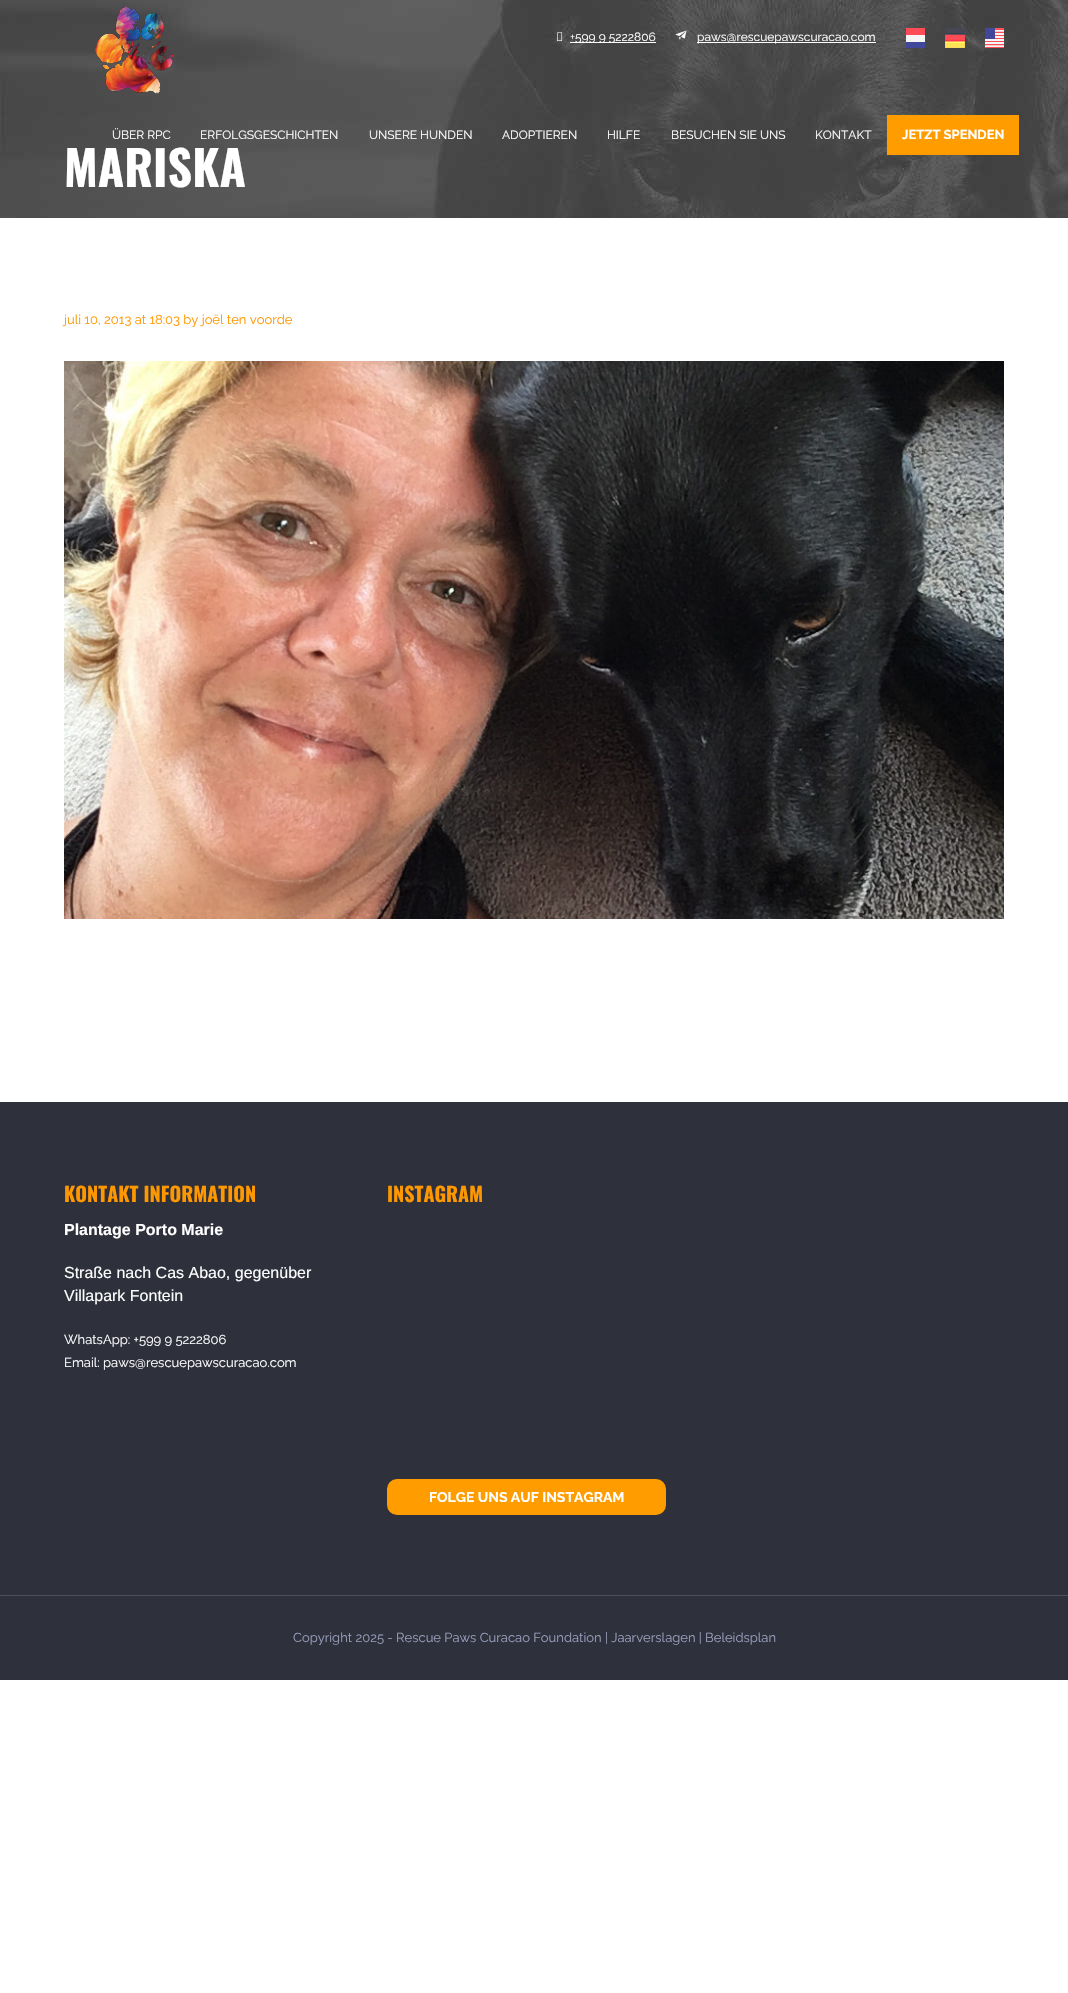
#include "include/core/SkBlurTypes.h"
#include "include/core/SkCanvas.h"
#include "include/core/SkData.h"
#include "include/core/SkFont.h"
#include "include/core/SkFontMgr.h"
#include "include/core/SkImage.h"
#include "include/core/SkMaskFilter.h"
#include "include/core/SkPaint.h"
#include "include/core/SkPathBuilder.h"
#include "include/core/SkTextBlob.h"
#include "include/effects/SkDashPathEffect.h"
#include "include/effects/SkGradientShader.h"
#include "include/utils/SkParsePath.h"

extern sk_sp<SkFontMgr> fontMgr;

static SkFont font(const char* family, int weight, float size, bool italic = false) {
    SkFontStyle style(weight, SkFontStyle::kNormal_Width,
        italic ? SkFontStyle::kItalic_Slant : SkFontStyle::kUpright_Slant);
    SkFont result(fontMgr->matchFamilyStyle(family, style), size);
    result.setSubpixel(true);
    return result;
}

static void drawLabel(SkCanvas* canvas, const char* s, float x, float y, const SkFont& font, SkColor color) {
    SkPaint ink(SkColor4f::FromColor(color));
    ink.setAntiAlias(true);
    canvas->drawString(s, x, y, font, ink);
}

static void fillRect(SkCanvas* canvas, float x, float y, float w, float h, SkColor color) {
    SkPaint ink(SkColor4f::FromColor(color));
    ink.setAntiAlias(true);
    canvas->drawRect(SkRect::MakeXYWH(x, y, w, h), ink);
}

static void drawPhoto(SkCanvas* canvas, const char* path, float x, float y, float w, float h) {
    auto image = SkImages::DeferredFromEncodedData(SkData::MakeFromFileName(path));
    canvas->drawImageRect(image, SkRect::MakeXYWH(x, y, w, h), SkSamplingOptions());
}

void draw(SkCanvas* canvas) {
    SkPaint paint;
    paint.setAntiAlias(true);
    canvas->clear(0xFFFFFFFF);
    drawPhoto(canvas, "assets/img7.png", 0, 0, 1068, 218);
    drawPhoto(canvas, "assets/img1.png", 95, 6, 79, 88);
    drawPhoto(canvas, "assets/img2.png", 557, 32, 6, 9);
    fillRect(canvas, 570, 42, 86, 1, 0xFFFFFFFF);
    SkFont font1 = font("Raleway", 400, 12);
    drawLabel(canvas, "+599 9 5222806", 570, 41, font1, 0xFFFFFFFF);
    drawPhoto(canvas, "assets/img3.png", 675, 30, 12, 10);
    fillRect(canvas, 697, 42, 179, 1, 0xFFFFFFFF);
    drawLabel(canvas, "paws@rescuepawscuracao.com", 697, 41, font1, 0xFFFFFFFF);
    drawPhoto(canvas, "assets/img4.png", 906, 28, 19, 20);
    drawPhoto(canvas, "assets/img5.png", 945, 28, 20, 20);
    drawPhoto(canvas, "assets/img6.png", 985, 28, 19, 20);
    drawLabel(canvas, "ÜBER RPC", 112, 139, font1, 0xFFFFFFFF);
    drawLabel(canvas, "ERFOLGSGESCHICHTEN", 200, 139, font1, 0xFFFFFFFF);
    drawLabel(canvas, "UNSERE HUNDEN", 369, 139, font1, 0xFFFFFFFF);
    drawLabel(canvas, "ADOPTIEREN", 502, 139, font1, 0xFFFFFFFF);
    drawLabel(canvas, "HILFE", 607, 139, font1, 0xFFFFFFFF);
    drawLabel(canvas, "BESUCHEN SIE UNS", 671, 139, font1, 0xFFFFFFFF);
    drawLabel(canvas, "KONTAKT", 815, 139, font1, 0xFFFFFFFF);
    fillRect(canvas, 887, 115, 132, 40, 0xFFFF9D00);
    SkFont font2 = font("Raleway", 700, 13);
    drawLabel(canvas, "JETZT SPENDEN", 902, 139, font2, 0xFFFFFFFF);
    SkFont font3 = font("Oswald", 700, 48);
    drawLabel(canvas, "MARISKA", 64, 187, font3, 0xFFFFFFFF);
    SkFont font4 = font("Raleway", 400, 13);
    drawLabel(canvas, "juli 10, 2013 at 18:03 by joël ten voorde", 64, 324, font4, 0xFFFF9800);
    drawPhoto(canvas, "assets/img8.png", 64, 361, 940, 558);
    fillRect(canvas, 0, 1102, 1068, 578, 0xFF2E303C);
    SkFont font5 = font("Oswald", 700, 20);
    drawLabel(canvas, "KONTAKT INFORMATION", 64, 1202, font5, 0xFFFF9800);
    SkFont font6 = font("Liberation Sans", 700, 16);
    drawLabel(canvas, "Plantage Porto Marie", 64, 1235, font6, 0xFFFFFFFF);
    SkFont font7 = font("Liberation Sans", 400, 16);
    drawLabel(canvas, "Straße nach Cas Abao, gegenüber", 64, 1278, font7, 0xFFFFFFFF);
    drawLabel(canvas, "Villapark Fontein", 64, 1301, font7, 0xFFFFFFFF);
    drawLabel(canvas, "WhatsApp: +599 9 5222806", 64, 1344, font4, 0xFFFFFFFF);
    drawLabel(canvas, "Email: paws@rescuepawscuracao.com", 64, 1367, font4, 0xFFFFFFFF);
    drawLabel(canvas, "INSTAGRAM", 387, 1202, font5, 0xFFFF9800);
    paint.setColor(0xFFFF9D00);
    canvas->drawRoundRect(SkRect::MakeXYWH(388, 1480, 277, 34), 9, 9, paint);
    paint.setStroke(true);
    paint.setStrokeWidth(2);
    canvas->drawRoundRect(SkRect::MakeXYWH(388, 1480, 277, 34), 9, 9, paint);
    SkFont font8 = font("Raleway", 700, 14);
    drawLabel(canvas, "FOLGE UNS AUF INSTAGRAM", 429, 1502, font8, 0xFFFFFFFF);
    fillRect(canvas, 0, 1595, 1068, 1, 0xFF4D4F59);
    drawLabel(canvas, "Copyright 2025 - Rescue Paws Curacao Foundation | Jaarverslagen | Beleidsplan", 293, 1642, font4, 0xFF999EBC);
}
